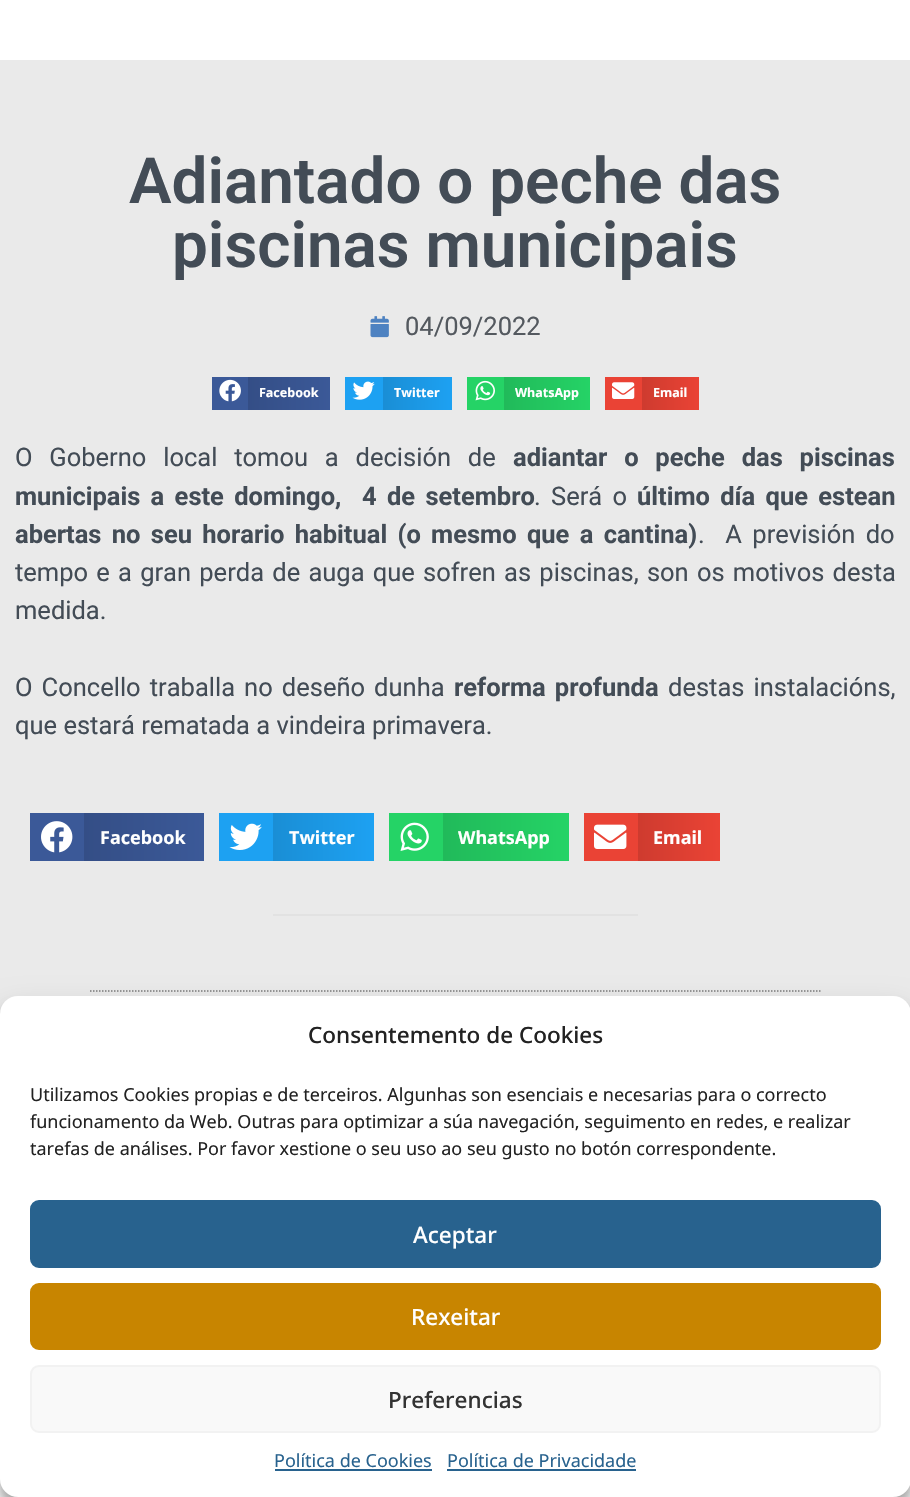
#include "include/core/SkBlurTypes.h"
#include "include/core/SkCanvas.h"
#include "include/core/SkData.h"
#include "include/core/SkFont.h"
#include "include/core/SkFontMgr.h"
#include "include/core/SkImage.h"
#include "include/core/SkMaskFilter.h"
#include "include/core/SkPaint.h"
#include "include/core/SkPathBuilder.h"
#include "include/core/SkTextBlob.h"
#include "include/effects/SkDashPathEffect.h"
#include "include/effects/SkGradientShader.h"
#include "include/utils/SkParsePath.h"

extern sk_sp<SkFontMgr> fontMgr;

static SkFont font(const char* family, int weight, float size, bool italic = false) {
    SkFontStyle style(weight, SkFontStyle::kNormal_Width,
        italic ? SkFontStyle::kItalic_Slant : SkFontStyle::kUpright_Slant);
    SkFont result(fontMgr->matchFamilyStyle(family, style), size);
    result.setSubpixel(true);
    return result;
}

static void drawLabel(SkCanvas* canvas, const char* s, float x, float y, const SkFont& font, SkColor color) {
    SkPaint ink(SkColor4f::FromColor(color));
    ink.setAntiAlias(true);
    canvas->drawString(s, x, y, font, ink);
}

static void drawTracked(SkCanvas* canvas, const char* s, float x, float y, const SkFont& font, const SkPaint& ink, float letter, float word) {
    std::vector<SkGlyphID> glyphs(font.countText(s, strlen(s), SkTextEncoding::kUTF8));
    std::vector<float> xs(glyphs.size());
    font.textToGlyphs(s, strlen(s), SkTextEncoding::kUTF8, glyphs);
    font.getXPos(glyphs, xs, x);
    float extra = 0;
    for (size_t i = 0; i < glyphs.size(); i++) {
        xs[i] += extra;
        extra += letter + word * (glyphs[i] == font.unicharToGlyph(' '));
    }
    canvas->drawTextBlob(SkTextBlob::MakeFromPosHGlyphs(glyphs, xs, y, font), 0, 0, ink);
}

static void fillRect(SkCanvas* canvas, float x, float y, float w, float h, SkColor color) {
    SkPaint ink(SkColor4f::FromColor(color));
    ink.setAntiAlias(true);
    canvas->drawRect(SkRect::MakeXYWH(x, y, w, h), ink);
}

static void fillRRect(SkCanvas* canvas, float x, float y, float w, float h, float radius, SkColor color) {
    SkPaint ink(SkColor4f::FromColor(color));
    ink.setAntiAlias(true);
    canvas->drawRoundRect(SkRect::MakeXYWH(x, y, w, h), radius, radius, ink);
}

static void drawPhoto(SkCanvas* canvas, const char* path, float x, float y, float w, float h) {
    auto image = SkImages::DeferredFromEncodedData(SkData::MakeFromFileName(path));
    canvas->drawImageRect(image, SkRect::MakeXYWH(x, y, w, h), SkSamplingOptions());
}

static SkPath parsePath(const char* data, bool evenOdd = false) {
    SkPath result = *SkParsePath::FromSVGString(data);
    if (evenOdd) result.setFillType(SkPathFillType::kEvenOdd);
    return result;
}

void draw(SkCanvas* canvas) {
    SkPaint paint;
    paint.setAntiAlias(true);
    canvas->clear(0xFFFFFFFF);
    fillRect(canvas, 0, 60, 910, 954, 0xFFEAEAEA);
    SkFont font1 = font("Roboto", 600, 63.75f);
    drawLabel(canvas, "Adiantado o peche das", 129, 203, font1, 0xFF434C56);
    drawLabel(canvas, "piscinas municipais", 172, 267, font1, 0xFF434C56);
    drawPhoto(canvas, "assets/img1.png", 370, 316, 19, 22);
    SkFont font2 = font("Roboto", 400, 25.5f);
    drawLabel(canvas, "04/09/2022", 405, 335, font2, 0xFF54595F);
    fillRect(canvas, 212, 377, 36, 33, 0xFF3B5998);
    drawPhoto(canvas, "assets/img2.png", 219, 379, 22, 23);
    {
        const SkColor colors[] = {0xFF344E86, 0xFF3B5998};
        const float stops[] = {0, 1};
        const SkPoint ends[] = {{248, 393}, {330, 393}};
        paint.setShader(SkGradientShader::MakeLinear(ends, colors, stops, 2, SkTileMode::kClamp));
        paint.setAlpha(255);
    }
    canvas->drawRect(SkRect::MakeXYWH(248, 377, 82, 33), paint);
    SkFont font3 = font("Noto Sans", 700, 12.5f);
    drawLabel(canvas, "Facebook", 259, 397, font3, 0xFFFFFFFF);
    fillRect(canvas, 345, 377, 38, 33, 0xFF1DA1F2);
    drawPhoto(canvas, "assets/img3.png", 352, 381, 23, 19);
    {
        const SkColor colors[] = {0xFF1A8ED5, 0xFF1DA1F2};
        const float stops[] = {0, 1};
        const SkPoint ends[] = {{383, 393}, {452, 393}};
        paint.setShader(SkGradientShader::MakeLinear(ends, colors, stops, 2, SkTileMode::kClamp));
        paint.setAlpha(255);
    }
    canvas->drawRect(SkRect::MakeXYWH(383, 377, 69, 33), paint);
    drawLabel(canvas, "Twitter", 394, 397, font3, 0xFFFFFFFF);
    fillRect(canvas, 467, 377, 37, 33, 0xFF25D366);
    drawPhoto(canvas, "assets/img4.png", 475, 380, 20, 21);
    {
        const SkColor colors[] = {0xFF21BA5A, 0xFF25D366};
        const float stops[] = {0, 1};
        const SkPoint ends[] = {{504, 393}, {590, 393}};
        paint.setShader(SkGradientShader::MakeLinear(ends, colors, stops, 2, SkTileMode::kClamp));
        paint.setAlpha(255);
    }
    canvas->drawRect(SkRect::MakeXYWH(504, 377, 86, 33), paint);
    drawLabel(canvas, "WhatsApp", 515, 397, font3, 0xFFFFFFFF);
    fillRect(canvas, 605, 377, 37, 33, 0xFFEA4335);
    drawPhoto(canvas, "assets/img5.png", 612, 382, 23, 17);
    {
        const SkColor colors[] = {0xFFCE3B2F, 0xFFEA4335};
        const float stops[] = {0, 1};
        const SkPoint ends[] = {{642, 393}, {699, 393}};
        paint.setShader(SkGradientShader::MakeLinear(ends, colors, stops, 2, SkTileMode::kClamp));
        paint.setAlpha(255);
    }
    canvas->drawRect(SkRect::MakeXYWH(642, 377, 57, 33), paint);
    drawLabel(canvas, "Email", 653, 397, font3, 0xFFFFFFFF);
    paint.setShader(nullptr);
    paint.setColor(0xFF434C56);
    drawTracked(canvas, "O Goberno local tomou a decisión de", 15, 466, font2, paint, 0, 10.5f);
    SkFont font4 = font("Roboto", 700, 25.5f);
    drawTracked(canvas, "adiantar o peche das piscinas", 513, 466, font4, paint, 0, 10.5f);
    drawTracked(canvas, "municipais a este domingo,  4 de setembro", 15, 505, font4, paint, 0, 4);
    drawTracked(canvas, ". Será o", 534, 505, font2, paint, 0, 4);
    drawTracked(canvas, "último día que estean", 637, 505, font4, paint, 0, 4);
    drawTracked(canvas, "abertas no seu horario habitual (o mesmo que a cantina)", 15, 543, font4, paint, 0, 4);
    drawTracked(canvas, ".  A previsión do", 698, 543, font2, paint, 0, 4);
    drawTracked(canvas, "tempo e a gran perda de auga que sofren as piscinas, son os motivos desta", 15, 581, font2, paint, 0, 1.9f);
    drawLabel(canvas, "medida.", 15, 619, font2, 0xFF434C56);
    drawTracked(canvas, "O Concello traballa no deseño dunha", 15, 696, font2, paint, 0, 2.75f);
    drawTracked(canvas, "reforma profunda", 454, 696, font4, paint, 0, 2.75f);
    drawTracked(canvas, "destas instalacións,", 668, 696, font2, paint, 0, 2.75f);
    drawLabel(canvas, "que estará rematada a vindeira primavera.", 15, 734, font2, 0xFF434C56);
    fillRect(canvas, 30, 813, 54, 48, 0xFF3B5998);
    drawPhoto(canvas, "assets/img6.png", 41, 821, 32, 32);
    {
        const SkColor colors[] = {0xFF344E86, 0xFF3B5998};
        const float stops[] = {0, 1};
        const SkPoint ends[] = {{84, 837}, {204, 837}};
        paint.setShader(SkGradientShader::MakeLinear(ends, colors, stops, 2, SkTileMode::kClamp));
        paint.setAlpha(255);
    }
    canvas->drawRect(SkRect::MakeXYWH(84, 813, 120, 48), paint);
    SkFont font5 = font("Noto Sans", 700, 18);
    drawLabel(canvas, "Facebook", 100, 844, font5, 0xFFFFFFFF);
    fillRect(canvas, 219, 813, 54, 48, 0xFF1DA1F2);
    drawPhoto(canvas, "assets/img7.png", 229, 823, 33, 27);
    {
        const SkColor colors[] = {0xFF1A8ED5, 0xFF1DA1F2};
        const float stops[] = {0, 1};
        const SkPoint ends[] = {{273, 837}, {374, 837}};
        paint.setShader(SkGradientShader::MakeLinear(ends, colors, stops, 2, SkTileMode::kClamp));
        paint.setAlpha(255);
    }
    canvas->drawRect(SkRect::MakeXYWH(273, 813, 101, 48), paint);
    drawLabel(canvas, "Twitter", 289, 844, font5, 0xFFFFFFFF);
    fillRect(canvas, 389, 813, 54, 48, 0xFF25D366);
    drawPhoto(canvas, "assets/img8.png", 400, 822, 29, 29);
    {
        const SkColor colors[] = {0xFF21BA5A, 0xFF25D366};
        const float stops[] = {0, 1};
        const SkPoint ends[] = {{443, 837}, {569, 837}};
        paint.setShader(SkGradientShader::MakeLinear(ends, colors, stops, 2, SkTileMode::kClamp));
        paint.setAlpha(255);
    }
    canvas->drawRect(SkRect::MakeXYWH(443, 813, 126, 48), paint);
    drawLabel(canvas, "WhatsApp", 458, 844, font5, 0xFFFFFFFF);
    fillRect(canvas, 584, 813, 54, 48, 0xFFEA4335);
    drawPhoto(canvas, "assets/img9.png", 594, 824, 33, 25);
    {
        const SkColor colors[] = {0xFFCE3B2F, 0xFFEA4335};
        const float stops[] = {0, 1};
        const SkPoint ends[] = {{638, 837}, {720, 837}};
        paint.setShader(SkGradientShader::MakeLinear(ends, colors, stops, 2, SkTileMode::kClamp));
        paint.setAlpha(255);
    }
    canvas->drawRect(SkRect::MakeXYWH(638, 813, 82, 48), paint);
    drawLabel(canvas, "Email", 653, 844, font5, 0xFFFFFFFF);
    fillRect(canvas, 273, 914, 365, 2, 0xFFE2E2E2);
    paint.setStroke(true);
    paint.setStrokeWidth(1.5f);
    paint.setShader(nullptr);
    paint.setColor(0xFF7A7A7A);
    paint.setPathEffect(SkDashPathEffect::Make({{1.5f, 1.5f}}, 0));
    canvas->drawPath(parsePath("M90 991H820.5"), paint);
    paint.setPathEffect(nullptr);
    paint.setStroke(false);
    paint.setColor(0x3B000000);
    paint.setMaskFilter(SkMaskFilter::MakeBlur(kNormal_SkBlurStyle, 4.5f));
    canvas->drawRoundRect(SkRect::MakeXYWH(0, 1005, 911, 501), 18, 18, paint);
    paint.setMaskFilter(nullptr);
    paint.setColor(0x30000000);
    paint.setMaskFilter(SkMaskFilter::MakeBlur(kNormal_SkBlurStyle, 15));
    canvas->drawRoundRect(SkRect::MakeXYWH(0, 1011, 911, 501), 18, 18, paint);
    paint.setMaskFilter(nullptr);
    fillRRect(canvas, 0, 996, 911, 501, 18, 0xFFFFFFFF);
    SkFont font6 = font("Noto Sans", 500, 22.5f);
    drawLabel(canvas, "Consentemento de Cookies", 308, 1043, font6, 0xFF222222);
    SkFont font7 = font("Noto Sans", 400, 18);
    drawLabel(canvas, "Utilizamos Cookies propias e de terceiros. Algunhas son esenciais e necesarias para o correcto", 30, 1101, font7, 0xFF222222);
    drawLabel(canvas, "funcionamento da Web. Outras para optimizar a súa navegación, seguimento en redes, e realizar", 30, 1128, font7, 0xFF222222);
    drawLabel(canvas, "tarefas de análises. Por favor xestione o seu uso ao seu gusto no botón correspondente.", 30, 1155, font7, 0xFF222222);
    paint.setColor(0xFF28628E);
    canvas->drawRoundRect(SkRect::MakeXYWH(31, 1201, 849, 66), 8, 8, paint);
    paint.setStroke(true);
    paint.setStrokeWidth(2);
    canvas->drawRoundRect(SkRect::MakeXYWH(31, 1201, 849, 66), 8, 8, paint);
    drawLabel(canvas, "Aceptar", 413, 1243, font6, 0xFFFFFFFF);
    paint.setStroke(false);
    paint.setColor(0xFFC88500);
    canvas->drawRoundRect(SkRect::MakeXYWH(31, 1284, 849, 65), 8, 8, paint);
    paint.setStroke(true);
    canvas->drawRoundRect(SkRect::MakeXYWH(31, 1284, 849, 65), 8, 8, paint);
    drawLabel(canvas, "Rexeitar", 411, 1325, font6, 0xFFFFFFFF);
    paint.setStroke(false);
    paint.setColor(0xFFF9F9F9);
    canvas->drawRoundRect(SkRect::MakeXYWH(31, 1366, 849, 66), 8, 8, paint);
    paint.setStroke(true);
    paint.setColor(0xFFF2F2F2);
    canvas->drawRoundRect(SkRect::MakeXYWH(31, 1366, 849, 66), 8, 8, paint);
    drawLabel(canvas, "Preferencias", 388, 1408, font6, 0xFF333333);
    drawLabel(canvas, "Política de Cookies", 274, 1467, font7, 0xFF28628E);
    fillRect(canvas, 275, 1469, 157, 2, 0xFF28628E);
    drawLabel(canvas, "Política de Privacidade", 447, 1467, font7, 0xFF28628E);
    fillRect(canvas, 447, 1469, 189, 2, 0xFF28628E);
}
